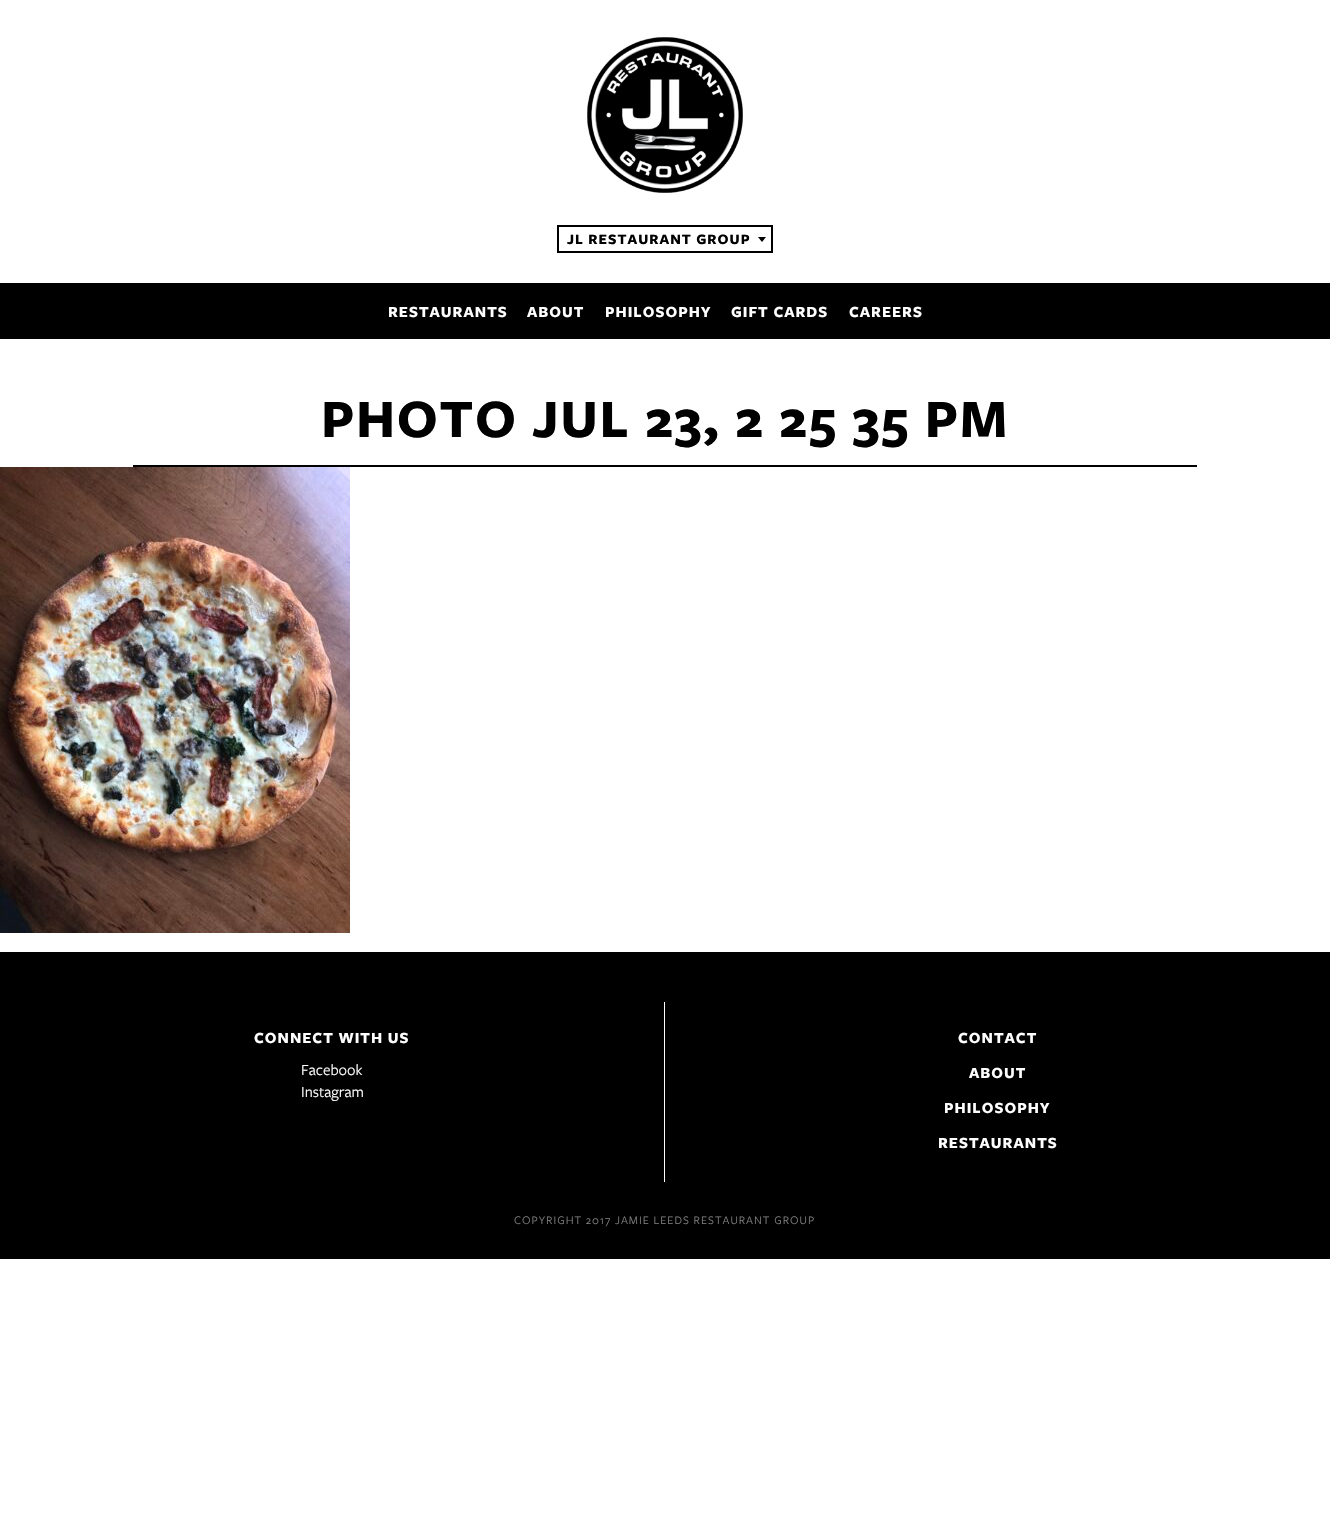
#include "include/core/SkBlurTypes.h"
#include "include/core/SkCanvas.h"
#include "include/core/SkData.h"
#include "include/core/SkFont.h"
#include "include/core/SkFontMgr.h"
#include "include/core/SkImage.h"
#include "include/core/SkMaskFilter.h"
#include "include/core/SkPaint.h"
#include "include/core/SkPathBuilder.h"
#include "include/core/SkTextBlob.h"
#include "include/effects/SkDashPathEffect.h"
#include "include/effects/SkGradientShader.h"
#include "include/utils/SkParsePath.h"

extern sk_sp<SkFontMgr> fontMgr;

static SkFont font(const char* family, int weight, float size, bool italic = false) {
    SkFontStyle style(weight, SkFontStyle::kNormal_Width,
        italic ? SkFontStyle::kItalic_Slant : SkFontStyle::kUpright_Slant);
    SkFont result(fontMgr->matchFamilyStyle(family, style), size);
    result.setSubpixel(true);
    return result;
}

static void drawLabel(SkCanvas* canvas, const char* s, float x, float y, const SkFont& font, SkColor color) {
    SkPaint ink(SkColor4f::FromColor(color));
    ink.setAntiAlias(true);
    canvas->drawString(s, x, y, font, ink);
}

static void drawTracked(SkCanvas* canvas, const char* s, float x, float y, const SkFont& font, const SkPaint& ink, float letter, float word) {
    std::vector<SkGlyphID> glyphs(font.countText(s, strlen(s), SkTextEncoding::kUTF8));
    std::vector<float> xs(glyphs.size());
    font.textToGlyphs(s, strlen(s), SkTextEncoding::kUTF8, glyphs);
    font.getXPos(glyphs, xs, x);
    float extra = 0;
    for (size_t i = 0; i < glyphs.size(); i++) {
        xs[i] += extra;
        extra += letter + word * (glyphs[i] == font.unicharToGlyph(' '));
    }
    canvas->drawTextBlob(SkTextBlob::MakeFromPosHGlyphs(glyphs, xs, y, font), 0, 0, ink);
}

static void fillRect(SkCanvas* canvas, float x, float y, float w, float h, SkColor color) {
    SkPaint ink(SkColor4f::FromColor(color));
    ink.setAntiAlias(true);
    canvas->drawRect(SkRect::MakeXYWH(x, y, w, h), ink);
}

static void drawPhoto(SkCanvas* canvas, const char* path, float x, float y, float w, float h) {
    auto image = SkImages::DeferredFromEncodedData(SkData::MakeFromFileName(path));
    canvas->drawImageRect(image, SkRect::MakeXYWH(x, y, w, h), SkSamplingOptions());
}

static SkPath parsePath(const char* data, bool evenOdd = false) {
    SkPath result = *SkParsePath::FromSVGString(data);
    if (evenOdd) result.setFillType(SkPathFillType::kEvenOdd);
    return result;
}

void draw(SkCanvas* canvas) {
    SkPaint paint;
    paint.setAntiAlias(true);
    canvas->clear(0xFFFFFFFF);
    drawPhoto(canvas, "assets/img1.png", 587, 37, 156, 156);
    paint.setStroke(true);
    paint.setStrokeWidth(2);
    paint.setColor(0xFF000000);
    canvas->drawRect(SkRect::MakeXYWH(558, 226, 214, 26), paint);
    SkFont font1 = font("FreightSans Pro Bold", 700, 15);
    paint.setStroke(false);
    drawTracked(canvas, "JL RESTAURANT GROUP", 567, 244, font1, paint, 1, 0);
    canvas->drawPath(parsePath("M758 237H766L762 242Z"), paint);
    fillRect(canvas, 0, 283, 1330, 56, 0xFF000000);
    SkFont font2 = font("FreightSans Pro Bold", 700, 16);
    paint.setColor(0xFFFFFFFF);
    drawTracked(canvas, "RESTAURANTS", 388, 317, font2, paint, 1, 0);
    drawTracked(canvas, "ABOUT", 527, 317, font2, paint, 1, 0);
    drawTracked(canvas, "PHILOSOPHY", 605, 317, font2, paint, 1, 0);
    drawTracked(canvas, "GIFT CARDS", 731, 317, font2, paint, 1, 0);
    drawTracked(canvas, "CAREERS", 849, 317, font2, paint, 1, 0);
    fillRect(canvas, 133, 465, 1064, 2, 0xFF000000);
    SkFont font3 = font("FreightSans Pro Bold", 700, 56);
    paint.setColor(0xFF000000);
    drawTracked(canvas, "PHOTO JUL 23, 2 25 35 PM", 321, 437, font3, paint, 1.7f, 0);
    drawPhoto(canvas, "assets/img2.png", 0, 467, 350, 466);
    fillRect(canvas, 0, 952, 1330, 307, 0xFF000000);
    fillRect(canvas, 664, 1002, 1, 180, 0xFFFFFFFF);
    paint.setColor(0xFFFFFFFF);
    drawTracked(canvas, "CONNECT WITH US", 254, 1043, font2, paint, 1, 0);
    SkFont font4 = font("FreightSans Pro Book", 400, 16);
    drawLabel(canvas, "Facebook", 301, 1075, font4, 0xFFFFFFFF);
    drawLabel(canvas, "Instagram", 301, 1097, font4, 0xFFFFFFFF);
    drawTracked(canvas, "CONTACT", 958, 1043, font2, paint, 1, 0);
    drawTracked(canvas, "ABOUT", 969, 1078, font2, paint, 1, 0);
    drawTracked(canvas, "PHILOSOPHY", 944, 1113, font2, paint, 1, 0);
    drawTracked(canvas, "RESTAURANTS", 938, 1148, font2, paint, 1, 0);
    SkFont font5 = font("FreightSans Pro Book", 400, 12);
    paint.setColor(0xFF808080);
    drawTracked(canvas, "COPYRIGHT 2017 JAMIE LEEDS RESTAURANT GROUP", 514, 1224, font5, paint, 1, 0);
}
